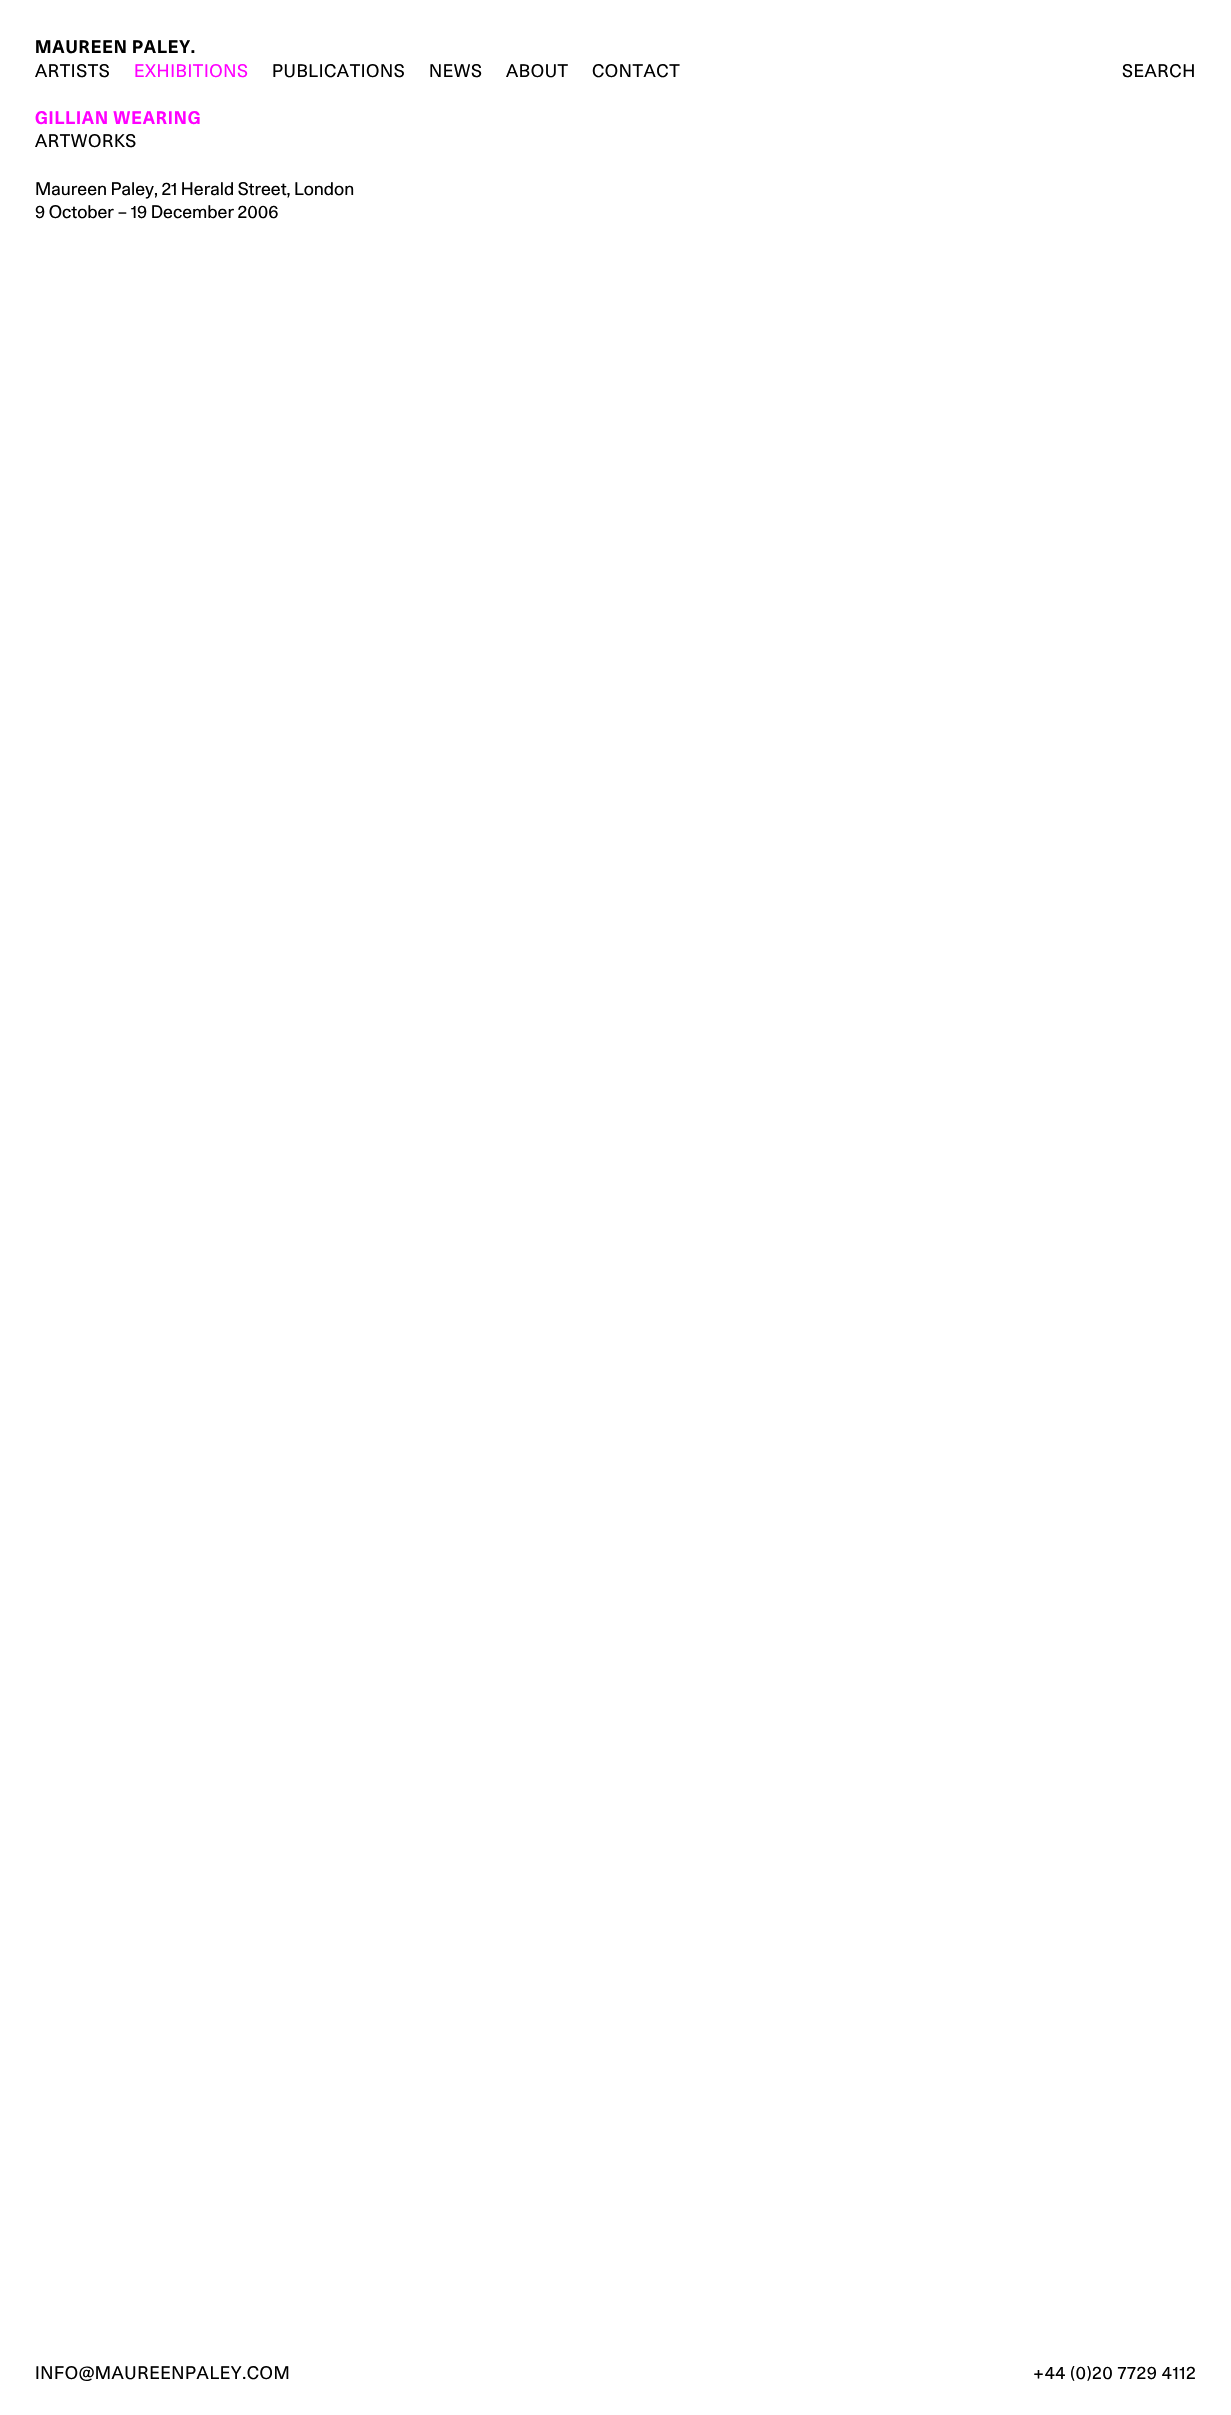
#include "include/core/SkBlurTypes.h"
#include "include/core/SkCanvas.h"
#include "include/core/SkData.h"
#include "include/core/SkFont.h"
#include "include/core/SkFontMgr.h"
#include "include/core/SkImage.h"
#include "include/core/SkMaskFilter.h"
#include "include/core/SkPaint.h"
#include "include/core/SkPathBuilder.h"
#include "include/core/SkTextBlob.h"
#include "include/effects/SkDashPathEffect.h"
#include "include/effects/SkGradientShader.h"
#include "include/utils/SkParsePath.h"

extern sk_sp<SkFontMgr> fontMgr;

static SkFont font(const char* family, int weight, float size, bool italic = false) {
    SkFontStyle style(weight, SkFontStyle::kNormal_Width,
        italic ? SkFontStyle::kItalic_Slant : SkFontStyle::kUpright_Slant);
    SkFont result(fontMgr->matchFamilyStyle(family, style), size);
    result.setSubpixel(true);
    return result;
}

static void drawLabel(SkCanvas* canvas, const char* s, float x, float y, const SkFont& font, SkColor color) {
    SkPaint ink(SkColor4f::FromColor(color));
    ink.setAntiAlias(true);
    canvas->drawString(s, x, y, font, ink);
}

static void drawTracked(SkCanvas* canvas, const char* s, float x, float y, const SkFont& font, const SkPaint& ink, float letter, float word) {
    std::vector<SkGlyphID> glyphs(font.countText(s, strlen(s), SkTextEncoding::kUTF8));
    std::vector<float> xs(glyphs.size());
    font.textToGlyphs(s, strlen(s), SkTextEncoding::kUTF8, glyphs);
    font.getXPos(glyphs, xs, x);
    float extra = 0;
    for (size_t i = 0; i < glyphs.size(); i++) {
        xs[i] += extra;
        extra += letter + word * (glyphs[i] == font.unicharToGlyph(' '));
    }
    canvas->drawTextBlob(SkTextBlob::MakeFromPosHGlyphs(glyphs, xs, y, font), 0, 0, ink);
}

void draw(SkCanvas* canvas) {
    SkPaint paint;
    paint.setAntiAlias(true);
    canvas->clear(0xFFFFFFFF);
    SkFont font1 = font("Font", 700, 17.5f);
    paint.setColor(0xFF000000);
    drawTracked(canvas, "MAUREEN PALEY.", 35, 53, font1, paint, 0.9f, 0);
    SkFont font2 = font("Font", 400, 17.5f);
    drawTracked(canvas, "ARTISTS", 35, 77, font2, paint, 0.6f, 0);
    paint.setColor(0xFFFF00FF);
    drawTracked(canvas, "EXHIBITIONS", 134, 77, font2, paint, 0.6f, 0);
    paint.setColor(0xFF000000);
    drawTracked(canvas, "PUBLICATIONS", 272, 77, font2, paint, 0.6f, 0);
    drawTracked(canvas, "NEWS", 429, 77, font2, paint, 0.6f, 0);
    drawTracked(canvas, "ABOUT", 506, 77, font2, paint, 0.6f, 0);
    drawTracked(canvas, "CONTACT", 592, 77, font2, paint, 0.6f, 0);
    drawTracked(canvas, "SEARCH", 1122, 77, font2, paint, 0.6f, 0);
    paint.setColor(0xFFFF00FF);
    drawTracked(canvas, "GILLIAN WEARING", 35, 124, font1, paint, 0.9f, 0);
    paint.setColor(0xFF000000);
    drawTracked(canvas, "ARTWORKS", 35, 147, font2, paint, 0.6f, 0);
    drawLabel(canvas, "Maureen Paley, 21 Herald Street, London", 35, 195, font2, 0xFF000000);
    drawLabel(canvas, "9 October – 19 December 2006", 35, 218, font2, 0xFF000000);
    drawTracked(canvas, "INFO@MAUREENPALEY.COM", 35, 2379, font2, paint, 0.6f, 0);
    drawTracked(canvas, "+44 (0)20 7729 4112", 1033, 2379, font2, paint, 0.6f, 0);
}
